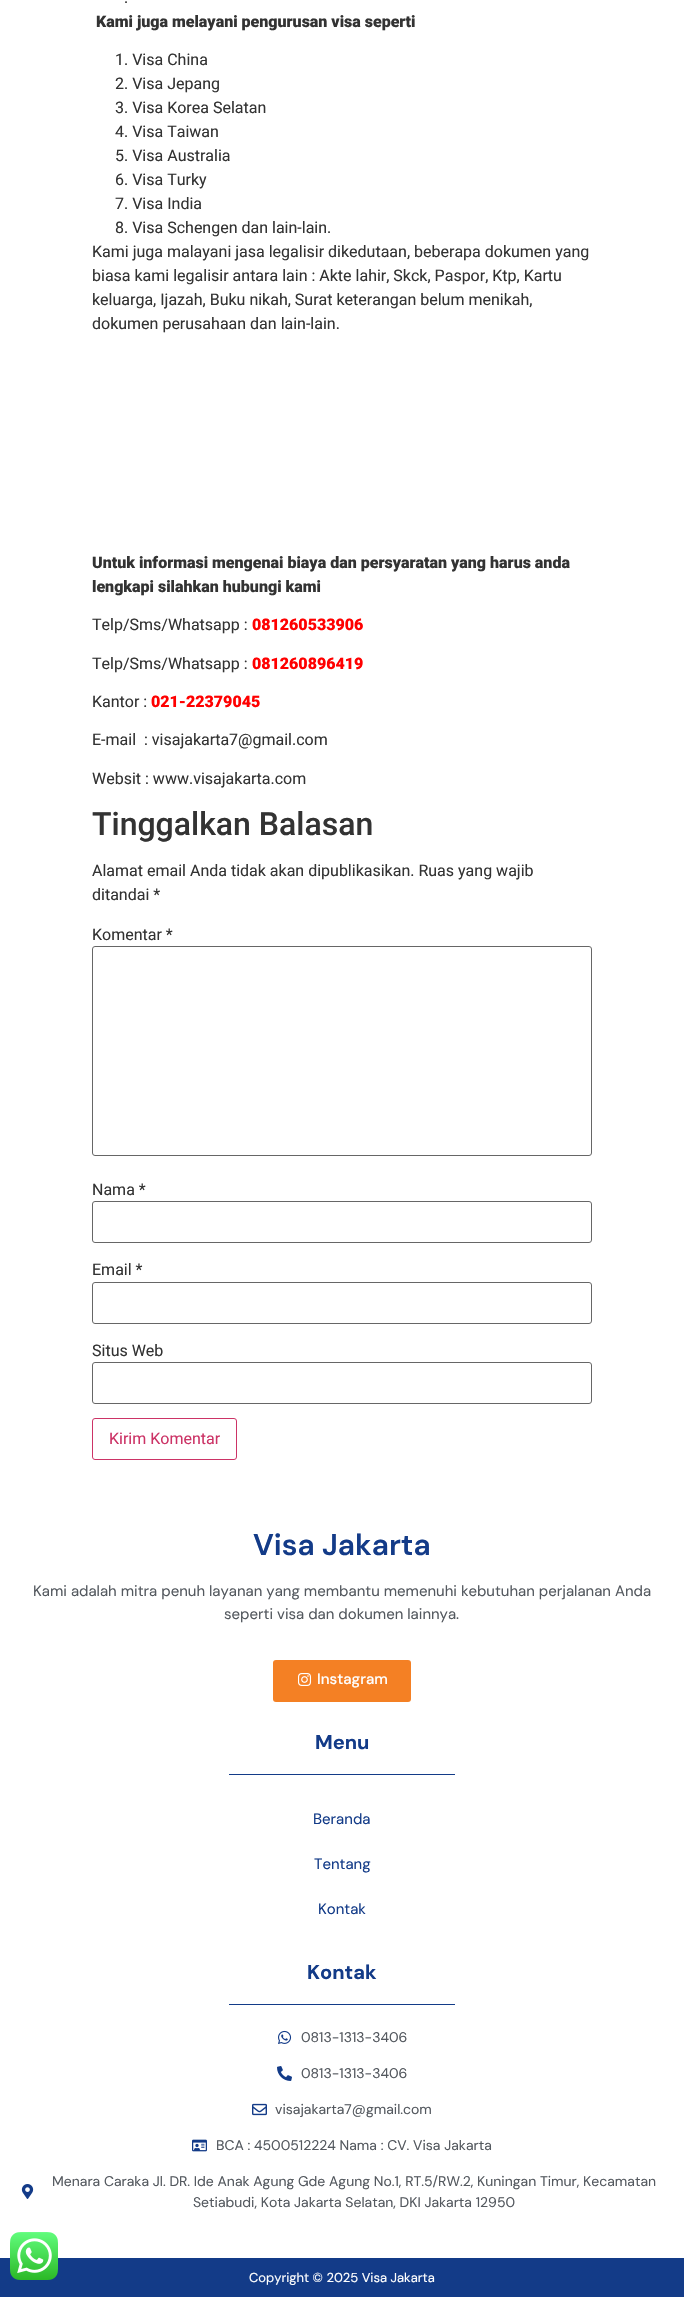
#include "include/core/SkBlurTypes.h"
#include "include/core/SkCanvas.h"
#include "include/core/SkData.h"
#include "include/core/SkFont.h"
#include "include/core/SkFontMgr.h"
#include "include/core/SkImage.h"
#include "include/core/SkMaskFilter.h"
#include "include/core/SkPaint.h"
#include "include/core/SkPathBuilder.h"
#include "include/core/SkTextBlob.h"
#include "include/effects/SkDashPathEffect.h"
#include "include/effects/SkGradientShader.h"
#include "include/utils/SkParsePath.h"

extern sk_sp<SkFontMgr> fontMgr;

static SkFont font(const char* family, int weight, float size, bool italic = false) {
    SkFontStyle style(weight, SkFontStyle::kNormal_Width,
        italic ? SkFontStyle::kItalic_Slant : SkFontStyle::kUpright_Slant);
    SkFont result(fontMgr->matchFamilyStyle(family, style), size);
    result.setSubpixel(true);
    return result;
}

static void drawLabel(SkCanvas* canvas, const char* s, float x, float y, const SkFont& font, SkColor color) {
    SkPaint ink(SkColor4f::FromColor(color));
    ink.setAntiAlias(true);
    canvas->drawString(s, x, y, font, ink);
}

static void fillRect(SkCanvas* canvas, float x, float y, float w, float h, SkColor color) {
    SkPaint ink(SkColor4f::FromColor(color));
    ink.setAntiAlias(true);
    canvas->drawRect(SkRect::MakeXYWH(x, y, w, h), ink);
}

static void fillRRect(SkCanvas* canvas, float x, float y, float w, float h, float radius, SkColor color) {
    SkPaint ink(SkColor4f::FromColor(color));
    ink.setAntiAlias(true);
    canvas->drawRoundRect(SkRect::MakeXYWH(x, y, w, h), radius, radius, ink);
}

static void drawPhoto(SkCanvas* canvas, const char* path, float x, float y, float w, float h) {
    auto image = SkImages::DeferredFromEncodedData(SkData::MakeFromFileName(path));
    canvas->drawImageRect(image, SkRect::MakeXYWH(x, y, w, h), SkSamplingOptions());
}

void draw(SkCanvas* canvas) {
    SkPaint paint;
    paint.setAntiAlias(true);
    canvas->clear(0xFFFFFFFF);
    SkFont font1 = font("Roboto", 400, 16);
    drawLabel(canvas, ".", 124, 3, font1, 0xFF333333);
    SkFont font2 = font("Roboto", 900, 16);
    drawLabel(canvas, "Kami juga melayani pengurusan visa seperti", 96, 27, font2, 0xFF333333);
    drawLabel(canvas, "1. Visa China", 115, 65, font1, 0xFF333333);
    drawLabel(canvas, "2. Visa Jepang", 115, 89, font1, 0xFF333333);
    drawLabel(canvas, "3. Visa Korea Selatan", 115, 113, font1, 0xFF333333);
    drawLabel(canvas, "4. Visa Taiwan", 115, 137, font1, 0xFF333333);
    drawLabel(canvas, "5. Visa Australia", 115, 161, font1, 0xFF333333);
    drawLabel(canvas, "6. Visa Turky", 115, 185, font1, 0xFF333333);
    drawLabel(canvas, "7. Visa India", 115, 209, font1, 0xFF333333);
    drawLabel(canvas, "8. Visa Schengen dan lain-lain.", 115, 233, font1, 0xFF333333);
    drawLabel(canvas, "Kami juga malayani jasa legalisir dikedutaan, beberapa dokumen yang", 92, 257, font1, 0xFF333333);
    drawLabel(canvas, "biasa kami legalisir antara lain : Akte lahir, Skck, Paspor, Ktp, Kartu", 92, 281, font1, 0xFF333333);
    drawLabel(canvas, "keluarga, Ijazah, Buku nikah, Surat keterangan belum menikah,", 92, 305, font1, 0xFF333333);
    drawLabel(canvas, "dokumen perusahaan dan lain-lain.", 92, 329, font1, 0xFF333333);
    drawLabel(canvas, "Untuk informasi mengenai biaya dan persyaratan yang harus anda", 92, 568, font2, 0xFF333333);
    drawLabel(canvas, "lengkapi silahkan hubungi kami", 92, 592, font2, 0xFF333333);
    drawLabel(canvas, "Telp/Sms/Whatsapp :", 92, 630, font1, 0xFF333333);
    drawLabel(canvas, "081260533906", 252, 630, font2, 0xFFFF0000);
    drawLabel(canvas, "Telp/Sms/Whatsapp :", 92, 669, font1, 0xFF333333);
    drawLabel(canvas, "081260896419", 252, 669, font2, 0xFFFF0000);
    drawLabel(canvas, "Kantor :", 92, 707, font1, 0xFF333333);
    drawLabel(canvas, "021-22379045", 151, 707, font2, 0xFFFF0000);
    drawLabel(canvas, "E-mail  : visajakarta7@gmail.com", 92, 745, font1, 0xFF333333);
    drawLabel(canvas, "Websit : www.visajakarta.com", 92, 784, font1, 0xFF333333);
    SkFont font3 = font("Roboto", 500, 32);
    drawLabel(canvas, "Tinggalkan Balasan", 92, 835, font3, 0xFF333333);
    drawLabel(canvas, "Alamat email Anda tidak akan dipublikasikan. Ruas yang wajib", 92, 876, font1, 0xFF333333);
    drawLabel(canvas, "ditandai *", 92, 900, font1, 0xFF333333);
    drawLabel(canvas, "Komentar *", 92, 940, font1, 0xFF333333);
    paint.setStroke(true);
    paint.setStrokeWidth(1);
    paint.setColor(0xFF666666);
    canvas->drawRoundRect(SkRect::MakeXYWH(92.5f, 946.5f, 499, 209), 2.5f, 2.5f, paint);
    drawLabel(canvas, "Nama *", 92, 1195, font1, 0xFF333333);
    canvas->drawRoundRect(SkRect::MakeXYWH(92.5f, 1201.5f, 499, 41), 2.5f, 2.5f, paint);
    drawLabel(canvas, "Email *", 92, 1275, font1, 0xFF333333);
    canvas->drawRoundRect(SkRect::MakeXYWH(92.5f, 1282.5f, 499, 41), 2.5f, 2.5f, paint);
    drawLabel(canvas, "Situs Web", 92, 1356, font1, 0xFF333333);
    canvas->drawRoundRect(SkRect::MakeXYWH(92.5f, 1362.5f, 499, 41), 2.5f, 2.5f, paint);
    paint.setColor(0xFFCC3366);
    canvas->drawRoundRect(SkRect::MakeXYWH(92.5f, 1418.5f, 144, 41), 2.5f, 2.5f, paint);
    drawLabel(canvas, "Kirim Komentar", 109, 1444, font1, 0xFFCC3366);
    SkFont font4 = font("DM Sans", 600, 30);
    drawLabel(canvas, "Visa Jakarta", 253, 1555, font4, 0xFF133B88);
    SkFont font5 = font("DM Sans", 400, 15);
    drawLabel(canvas, "Kami adalah mitra penuh layanan yang membantu memenuhi kebutuhan perjalanan Anda", 33, 1596, font5, 0xFF54595F);
    drawLabel(canvas, "seperti visa dan dokumen lainnya.", 224, 1619, font5, 0xFF54595F);
    fillRRect(canvas, 273, 1660, 138, 42, 3, 0xFFF48024);
    drawPhoto(canvas, "assets/img1.png", 298, 1673, 14, 13);
    SkFont font6 = font("DM Sans", 500, 15);
    drawLabel(canvas, "Instagram", 317, 1684, font6, 0xFFFFFFFF);
    SkFont font7 = font("DM Sans", 700, 20);
    drawLabel(canvas, "Menu", 315, 1749, font7, 0xFF133B88);
    fillRect(canvas, 229, 1774, 226, 1, 0xFF133B88);
    drawLabel(canvas, "Beranda", 313, 1824, font5, 0xFF133B88);
    drawLabel(canvas, "Tentang", 314, 1869, font5, 0xFF133B88);
    drawLabel(canvas, "Kontak", 318, 1914, font5, 0xFF133B88);
    drawLabel(canvas, "Kontak", 307, 1979, font7, 0xFF133B88);
    fillRect(canvas, 229, 2004, 226, 1, 0xFF133B88);
    drawPhoto(canvas, "assets/img2.png", 278, 2030, 14, 14);
    SkFont font8 = font("DM Sans", 400, 14);
    drawLabel(canvas, "0813-1313-3406", 301, 2042, font8, 0xFF54595F);
    drawPhoto(canvas, "assets/img3.png", 277, 2066, 15, 15);
    drawLabel(canvas, "0813-1313-3406", 301, 2078, font8, 0xFF54595F);
    drawPhoto(canvas, "assets/img4.png", 252, 2103, 15, 13);
    drawLabel(canvas, "visajakarta7@gmail.com", 275, 2114, font8, 0xFF54595F);
    drawPhoto(canvas, "assets/img5.png", 192, 2139, 15, 13);
    drawLabel(canvas, "BCA : 4500512224 Nama : CV. Visa Jakarta", 216, 2150, font8, 0xFF54595F);
    drawPhoto(canvas, "assets/img6.png", 21, 2184, 13, 15);
    drawLabel(canvas, "Menara Caraka Jl. DR. Ide Anak Agung Gde Agung No.1, RT.5/RW.2, Kuningan Timur, Kecamatan", 52, 2186, font8, 0xFF54595F);
    drawLabel(canvas, "Setiabudi, Kota Jakarta Selatan, DKI Jakarta 12950", 193, 2207, font8, 0xFF54595F);
    fillRect(canvas, 0, 2258, 684, 39, 0xFF133B88);
    SkFont font9 = font("DM Sans", 400, 13);
    drawLabel(canvas, "Copyright © 2025 Visa Jakarta", 249, 2282, font9, 0xFFFFFFFF);
    drawPhoto(canvas, "assets/img7.png", 10, 2232, 48, 48);
}
